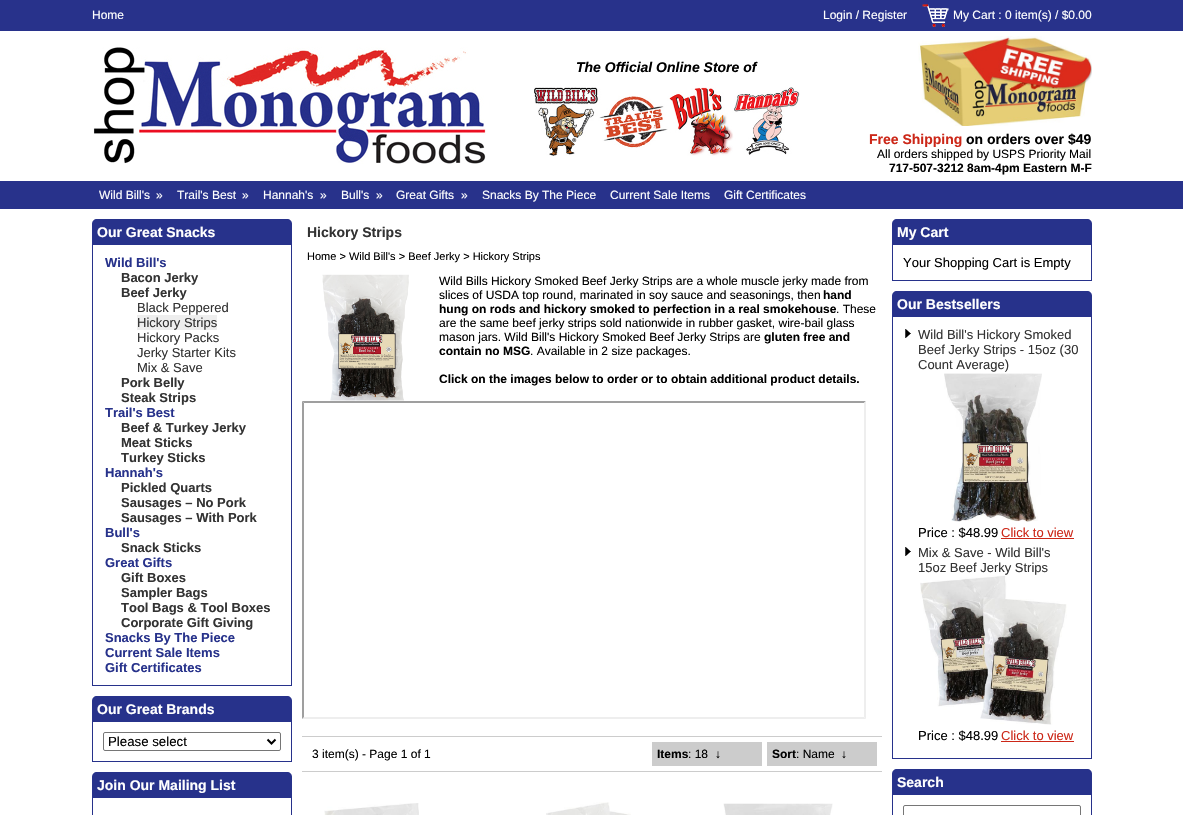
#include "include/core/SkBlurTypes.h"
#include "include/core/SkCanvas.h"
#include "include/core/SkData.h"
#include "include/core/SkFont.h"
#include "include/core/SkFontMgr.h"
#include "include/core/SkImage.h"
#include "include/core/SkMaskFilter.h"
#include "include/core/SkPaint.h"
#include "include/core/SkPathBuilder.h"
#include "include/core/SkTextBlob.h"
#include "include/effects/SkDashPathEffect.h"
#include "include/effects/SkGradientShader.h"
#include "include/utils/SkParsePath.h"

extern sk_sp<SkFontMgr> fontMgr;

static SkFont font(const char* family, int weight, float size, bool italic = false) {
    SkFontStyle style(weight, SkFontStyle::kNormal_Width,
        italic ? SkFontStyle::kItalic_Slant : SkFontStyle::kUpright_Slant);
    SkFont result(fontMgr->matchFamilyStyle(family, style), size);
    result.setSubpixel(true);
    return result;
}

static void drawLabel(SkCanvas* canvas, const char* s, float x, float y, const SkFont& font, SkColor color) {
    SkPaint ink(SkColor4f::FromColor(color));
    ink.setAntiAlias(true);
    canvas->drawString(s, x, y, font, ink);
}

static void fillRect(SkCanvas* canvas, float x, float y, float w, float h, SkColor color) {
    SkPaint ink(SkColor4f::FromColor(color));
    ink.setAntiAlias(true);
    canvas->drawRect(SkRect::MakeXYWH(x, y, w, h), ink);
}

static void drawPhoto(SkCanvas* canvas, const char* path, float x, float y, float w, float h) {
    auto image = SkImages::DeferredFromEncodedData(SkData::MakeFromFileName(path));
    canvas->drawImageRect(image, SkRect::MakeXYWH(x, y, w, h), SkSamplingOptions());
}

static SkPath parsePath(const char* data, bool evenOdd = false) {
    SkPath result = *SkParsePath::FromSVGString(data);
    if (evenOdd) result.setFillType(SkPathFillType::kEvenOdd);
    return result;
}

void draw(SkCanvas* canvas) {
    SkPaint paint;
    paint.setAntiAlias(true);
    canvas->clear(0xFFFFFFFF);
    fillRect(canvas, 0, 0, 1183, 31, 0xFF28328B);
    SkFont font1 = font("Liberation Sans", 400, 12);
    drawLabel(canvas, "Home", 92, 19, font1, 0xFFFFFFFF);
    drawLabel(canvas, "Login / Register", 823, 19, font1, 0xFFFFFFFF);
    drawPhoto(canvas, "assets/img1.png", 922, 4, 27, 23);
    drawLabel(canvas, "My Cart : 0 item(s) / $0.00", 953, 19, font1, 0xFFFFFFFF);
    drawPhoto(canvas, "assets/img2.png", 93, 47, 393, 117);
    SkFont font2 = font("Liberation Sans", 700, 14, true);
    drawLabel(canvas, "The Official Online Store of", 576, 72, font2, 0xFF000000);
    drawPhoto(canvas, "assets/img3.png", 534, 87, 266, 69);
    drawPhoto(canvas, "assets/img4.png", 918, 36, 174, 90);
    SkFont font3 = font("Liberation Sans", 700, 14);
    drawLabel(canvas, "Free Shipping", 869, 144, font3, 0xFFCC2718);
    drawLabel(canvas, "on orders over $49", 966, 144, font3, 0xFF000000);
    drawLabel(canvas, "All orders shipped by USPS Priority Mail", 877, 158, font1, 0xFF000000);
    SkFont font4 = font("Liberation Sans", 700, 12);
    drawLabel(canvas, "717-507-3212 8am-4pm Eastern M-F", 889, 172, font4, 0xFF000000);
    fillRect(canvas, 0, 181, 1183, 28, 0xFF28328B);
    drawLabel(canvas, "Wild Bill's", 99, 199, font1, 0xFFFFFFFF);
    drawLabel(canvas, "»", 156, 199, font1, 0xFFFFFFFF);
    drawLabel(canvas, "Trail's Best", 177, 199, font1, 0xFFFFFFFF);
    drawLabel(canvas, "»", 242, 199, font1, 0xFFFFFFFF);
    drawLabel(canvas, "Hannah's", 263, 199, font1, 0xFFFFFFFF);
    drawLabel(canvas, "»", 320, 199, font1, 0xFFFFFFFF);
    drawLabel(canvas, "Bull's", 341, 199, font1, 0xFFFFFFFF);
    drawLabel(canvas, "»", 376, 199, font1, 0xFFFFFFFF);
    drawLabel(canvas, "Great Gifts", 396, 199, font1, 0xFFFFFFFF);
    drawLabel(canvas, "»", 461, 199, font1, 0xFFFFFFFF);
    drawLabel(canvas, "Snacks By The Piece", 482, 199, font1, 0xFFFFFFFF);
    drawLabel(canvas, "Current Sale Items", 610, 199, font1, 0xFFFFFFFF);
    drawLabel(canvas, "Gift Certificates", 724, 199, font1, 0xFFFFFFFF);
    paint.setColor(0xFF27328B);
    canvas->drawPath(parsePath("M97 219H287C290 219 292 221 292 224V245H92V224C92 221 94 219 97 219Z"), paint);
    drawLabel(canvas, "Our Great Snacks", 97, 237, font3, 0xFFFFFFFF);
    fillRect(canvas, 291, 245, 1, 441, 0xFF27328B);
    fillRect(canvas, 92, 685, 200, 1, 0xFF27328B);
    fillRect(canvas, 92, 245, 1, 441, 0xFF27328B);
    SkFont font5 = font("Liberation Sans", 700, 13);
    drawLabel(canvas, "Wild Bill's", 105, 267, font5, 0xFF27328B);
    drawLabel(canvas, "Bacon Jerky", 121, 282, font5, 0xFF333333);
    drawLabel(canvas, "Beef Jerky", 121, 297, font5, 0xFF333333);
    SkFont font6 = font("Liberation Sans", 400, 13);
    drawLabel(canvas, "Black Peppered", 137, 312, font6, 0xFF333333);
    fillRect(canvas, 137, 315, 80, 15, 0xFFEEEEEE);
    drawLabel(canvas, "Hickory Strips", 137, 327, font6, 0xFF333333);
    drawLabel(canvas, "Hickory Packs", 137, 342, font6, 0xFF333333);
    drawLabel(canvas, "Jerky Starter Kits", 137, 357, font6, 0xFF333333);
    drawLabel(canvas, "Mix & Save", 137, 372, font6, 0xFF333333);
    drawLabel(canvas, "Pork Belly", 121, 387, font5, 0xFF333333);
    drawLabel(canvas, "Steak Strips", 121, 402, font5, 0xFF333333);
    drawLabel(canvas, "Trail's Best", 105, 417, font5, 0xFF27328B);
    drawLabel(canvas, "Beef & Turkey Jerky", 121, 432, font5, 0xFF333333);
    drawLabel(canvas, "Meat Sticks", 121, 447, font5, 0xFF333333);
    drawLabel(canvas, "Turkey Sticks", 121, 462, font5, 0xFF333333);
    drawLabel(canvas, "Hannah's", 105, 477, font5, 0xFF27328B);
    drawLabel(canvas, "Pickled Quarts", 121, 492, font5, 0xFF333333);
    drawLabel(canvas, "Sausages – No Pork", 121, 507, font5, 0xFF333333);
    drawLabel(canvas, "Sausages – With Pork", 121, 522, font5, 0xFF333333);
    drawLabel(canvas, "Bull's", 105, 537, font5, 0xFF27328B);
    drawLabel(canvas, "Snack Sticks", 121, 552, font5, 0xFF333333);
    drawLabel(canvas, "Great Gifts", 105, 567, font5, 0xFF27328B);
    drawLabel(canvas, "Gift Boxes", 121, 582, font5, 0xFF333333);
    drawLabel(canvas, "Sampler Bags", 121, 597, font5, 0xFF333333);
    drawLabel(canvas, "Tool Bags & Tool Boxes", 121, 612, font5, 0xFF333333);
    drawLabel(canvas, "Corporate Gift Giving", 121, 627, font5, 0xFF333333);
    drawLabel(canvas, "Snacks By The Piece", 105, 642, font5, 0xFF27328B);
    drawLabel(canvas, "Current Sale Items", 105, 657, font5, 0xFF27328B);
    drawLabel(canvas, "Gift Certificates", 105, 672, font5, 0xFF27328B);
    canvas->drawPath(parsePath("M97 696H287C290 696 292 698 292 701V722H92V701C92 698 94 696 97 696Z"), paint);
    drawLabel(canvas, "Our Great Brands", 97, 714, font3, 0xFFFFFFFF);
    fillRect(canvas, 291, 722, 1, 40, 0xFF27328B);
    fillRect(canvas, 92, 761, 200, 1, 0xFF27328B);
    fillRect(canvas, 92, 722, 1, 40, 0xFF27328B);
    paint.setStroke(true);
    paint.setStrokeWidth(1);
    paint.setColor(0xFF767676);
    canvas->drawRoundRect(SkRect::MakeXYWH(103.5f, 732.5f, 177, 18), 1.5f, 1.5f, paint);
    paint.setStrokeWidth(2);
    paint.setColor(0xFF000000);
    canvas->drawPath(parsePath("M267.5 739.5L271.5 743.5L275.5 739.5"), paint);
    SkFont font7 = font("Liberation Sans", 400, 13.25f);
    drawLabel(canvas, "Please select", 108, 746, font7, 0xFF000000);
    paint.setStroke(false);
    paint.setColor(0xFF27328B);
    canvas->drawPath(parsePath("M97 772H287C290 772 292 774 292 777V798H92V777C92 774 94 772 97 772Z"), paint);
    drawLabel(canvas, "Join Our Mailing List", 97, 790, font3, 0xFFFFFFFF);
    fillRect(canvas, 291, 798, 1, 17, 0xFF27328B);
    fillRect(canvas, 92, 798, 1, 17, 0xFF27328B);
    drawLabel(canvas, "Hickory Strips", 307, 237, font3, 0xFF333333);
    SkFont font8 = font("Liberation Sans", 400, 11);
    drawLabel(canvas, "Home > Wild Bill's > Beef Jerky > Hickory Strips", 307, 260, font8, 0xFF000000);
    drawPhoto(canvas, "assets/img5.png", 322, 274, 87, 127);
    drawLabel(canvas, "Wild Bills Hickory Smoked Beef Jerky Strips are a whole muscle jerky made from", 439, 285, font1, 0xFF000000);
    drawLabel(canvas, "slices of USDA top round, marinated in soy sauce and seasonings, then", 439, 299, font1, 0xFF000000);
    drawLabel(canvas, "hand", 823, 299, font4, 0xFF000000);
    drawLabel(canvas, "hung on rods and hickory smoked to perfection in a real smokehouse", 439, 313, font4, 0xFF000000);
    drawLabel(canvas, ". These", 836, 313, font1, 0xFF000000);
    drawLabel(canvas, "are the same beef jerky strips sold nationwide in rubber gasket, wire-bail glass", 439, 327, font1, 0xFF000000);
    drawLabel(canvas, "mason jars. Wild Bill's Hickory Smoked Beef Jerky Strips are", 439, 341, font1, 0xFF000000);
    drawLabel(canvas, "gluten free and", 764, 341, font4, 0xFF000000);
    drawLabel(canvas, "contain no MSG", 439, 355, font4, 0xFF000000);
    drawLabel(canvas, ". Available in 2 size packages.", 530, 355, font1, 0xFF000000);
    drawLabel(canvas, "Click on the images below to order or to obtain additional product details.", 439, 383, font4, 0xFF000000);
    paint.setColor(0xFF9F9F9F);
    canvas->drawPath(parsePath("M302 401H866L864 403H304Z"), paint);
    paint.setColor(0xFFEEEEEE);
    canvas->drawPath(parsePath("M866 401V719L864 717V403Z"), paint);
    canvas->drawPath(parsePath("M866 719H302L304 717H864Z"), paint);
    paint.setColor(0xFF9F9F9F);
    canvas->drawPath(parsePath("M302 719V401L304 403V717Z"), paint);
    fillRect(canvas, 302, 736, 580, 1, 0xFFCCCCCC);
    fillRect(canvas, 302, 771, 580, 1, 0xFFCCCCCC);
    drawLabel(canvas, "3 item(s) - Page 1 of 1", 312, 758, font1, 0xFF000000);
    fillRect(canvas, 652, 742, 110, 24, 0xFFCCCCCC);
    drawLabel(canvas, "Items", 657, 758, font4, 0xFF000000);
    drawLabel(canvas, ": 18", 688, 758, font1, 0xFF000000);
    drawLabel(canvas, "↓", 715, 758, font1, 0xFF000000);
    fillRect(canvas, 767, 742, 110, 24, 0xFFCCCCCC);
    drawLabel(canvas, "Sort", 772, 758, font4, 0xFF000000);
    drawLabel(canvas, ": Name", 796, 758, font1, 0xFF000000);
    drawLabel(canvas, "↓", 841, 758, font1, 0xFF000000);
    drawPhoto(canvas, "assets/img6.png", 324, 803, 95, 12);
    drawPhoto(canvas, "assets/img7.png", 546, 802, 85, 13);
    drawPhoto(canvas, "assets/img8.png", 723, 803, 110, 12);
    paint.setColor(0xFF27328B);
    canvas->drawPath(parsePath("M897 219H1087C1090 219 1092 221 1092 224V245H892V224C892 221 894 219 897 219Z"), paint);
    drawLabel(canvas, "My Cart", 897, 237, font3, 0xFFFFFFFF);
    fillRect(canvas, 1091, 245, 1, 36, 0xFF27328B);
    fillRect(canvas, 892, 280, 200, 1, 0xFF27328B);
    fillRect(canvas, 892, 245, 1, 36, 0xFF27328B);
    drawLabel(canvas, "Your Shopping Cart is Empty", 903, 267, font6, 0xFF000000);
    canvas->drawPath(parsePath("M897 291H1087C1090 291 1092 293 1092 296V317H892V296C892 293 894 291 897 291Z"), paint);
    drawLabel(canvas, "Our Bestsellers", 897, 309, font3, 0xFFFFFFFF);
    fillRect(canvas, 1091, 317, 1, 442, 0xFF27328B);
    fillRect(canvas, 892, 758, 200, 1, 0xFF27328B);
    fillRect(canvas, 892, 317, 1, 442, 0xFF27328B);
    drawPhoto(canvas, "assets/img9.png", 905, 329, 6, 9);
    drawLabel(canvas, "Wild Bill's Hickory Smoked", 918, 339, font6, 0xFF333333);
    drawLabel(canvas, "Beef Jerky Strips - 15oz (30", 918, 354, font6, 0xFF333333);
    drawLabel(canvas, "Count Average)", 918, 369, font6, 0xFF333333);
    drawPhoto(canvas, "assets/img10.png", 944, 373, 98, 149);
    drawLabel(canvas, "Price : $48.99", 918, 537, font6, 0xFF000000);
    drawLabel(canvas, "Click to view", 1001, 537, font6, 0xFFCC2718);
    fillRect(canvas, 1001, 538, 73, 1, 0xFFCC2718);
    drawPhoto(canvas, "assets/img9.png", 905, 547, 6, 9);
    drawLabel(canvas, "Mix & Save - Wild Bill's", 918, 557, font6, 0xFF333333);
    drawLabel(canvas, "15oz Beef Jerky Strips", 918, 572, font6, 0xFF333333);
    drawPhoto(canvas, "assets/img11.png", 920, 575, 147, 150);
    drawLabel(canvas, "Price : $48.99", 918, 740, font6, 0xFF000000);
    drawLabel(canvas, "Click to view", 1001, 740, font6, 0xFFCC2718);
    fillRect(canvas, 1001, 741, 73, 1, 0xFFCC2718);
    canvas->drawPath(parsePath("M897 769H1087C1090 769 1092 771 1092 774V795H892V774C892 771 894 769 897 769Z"), paint);
    drawLabel(canvas, "Search", 897, 787, font3, 0xFFFFFFFF);
    fillRect(canvas, 1091, 795, 1, 20, 0xFF27328B);
    fillRect(canvas, 892, 795, 1, 20, 0xFF27328B);
    paint.setStroke(true);
    paint.setStrokeWidth(1);
    paint.setColor(0xFF767676);
    canvas->drawRoundRect(SkRect::MakeXYWH(903.5f, 805.5f, 177, 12), 1.5f, 1.5f, paint);
}
